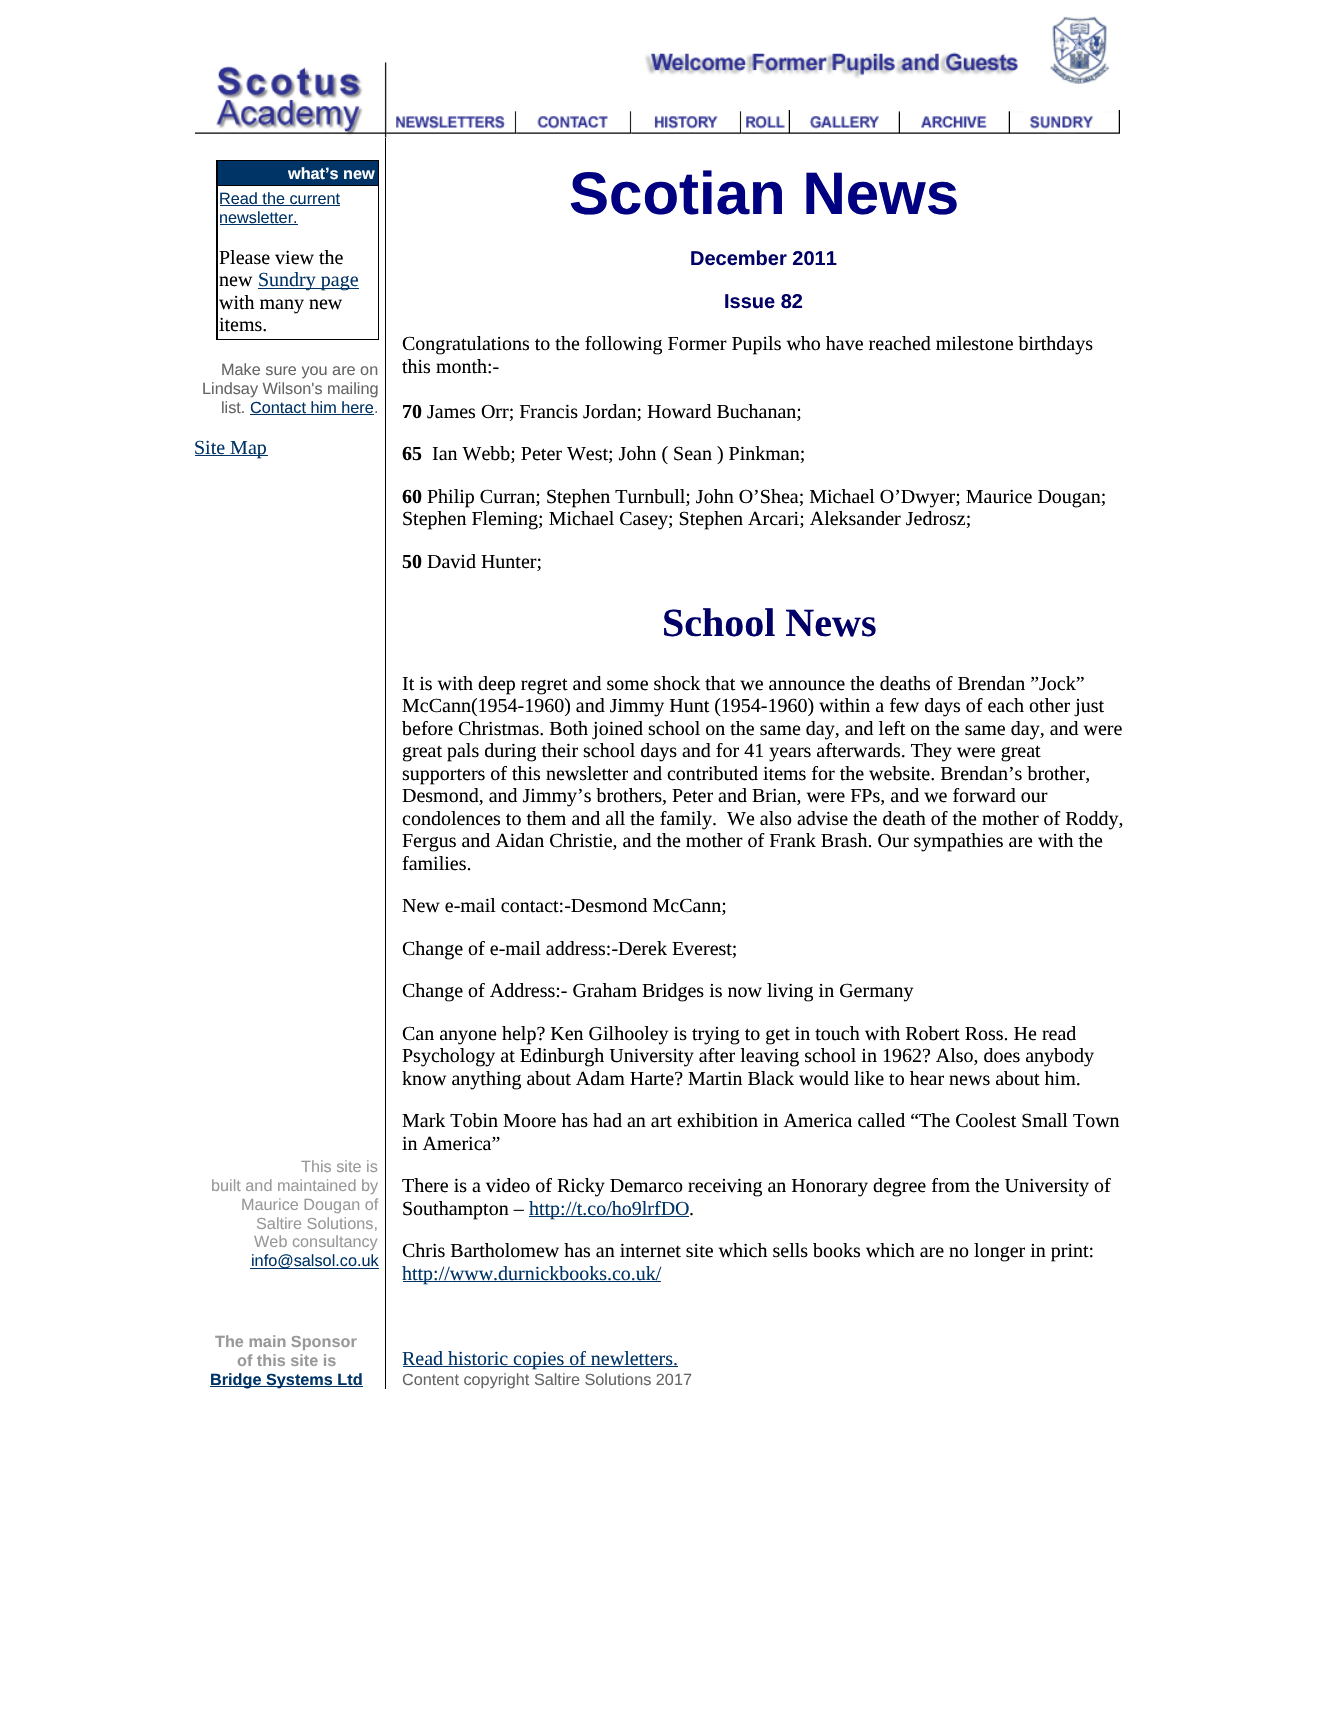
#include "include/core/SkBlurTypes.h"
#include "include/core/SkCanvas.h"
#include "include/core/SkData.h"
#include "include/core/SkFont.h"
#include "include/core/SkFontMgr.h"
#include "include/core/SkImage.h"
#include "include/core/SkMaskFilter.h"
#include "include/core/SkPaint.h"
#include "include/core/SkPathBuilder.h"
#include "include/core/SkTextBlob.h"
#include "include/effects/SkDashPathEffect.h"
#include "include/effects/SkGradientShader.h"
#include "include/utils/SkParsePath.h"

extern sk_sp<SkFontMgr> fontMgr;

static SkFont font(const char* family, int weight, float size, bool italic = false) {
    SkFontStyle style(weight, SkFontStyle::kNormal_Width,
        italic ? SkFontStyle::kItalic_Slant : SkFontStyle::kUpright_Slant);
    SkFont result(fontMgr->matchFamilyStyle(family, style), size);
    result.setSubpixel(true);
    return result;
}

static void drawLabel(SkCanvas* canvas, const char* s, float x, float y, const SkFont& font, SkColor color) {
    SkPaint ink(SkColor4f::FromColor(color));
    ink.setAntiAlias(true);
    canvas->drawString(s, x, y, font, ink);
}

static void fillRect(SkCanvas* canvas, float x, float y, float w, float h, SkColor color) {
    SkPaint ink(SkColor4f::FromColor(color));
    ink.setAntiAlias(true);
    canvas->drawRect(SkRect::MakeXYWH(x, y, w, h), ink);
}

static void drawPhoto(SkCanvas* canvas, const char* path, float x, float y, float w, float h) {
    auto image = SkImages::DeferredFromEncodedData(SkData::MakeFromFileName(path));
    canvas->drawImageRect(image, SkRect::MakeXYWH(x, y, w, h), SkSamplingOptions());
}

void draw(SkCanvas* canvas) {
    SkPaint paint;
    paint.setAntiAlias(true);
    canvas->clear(0xFFFFFFFF);
    drawPhoto(canvas, "assets/img4.png", 386, 111, 131, 23);
    drawPhoto(canvas, "assets/img1.png", 195, 62, 192, 76);
    drawPhoto(canvas, "assets/img2.png", 644, 52, 374, 27);
    drawPhoto(canvas, "assets/img3.png", 1050, 16, 60, 68);
    drawPhoto(canvas, "assets/img5.png", 516, 111, 116, 23);
    drawPhoto(canvas, "assets/img6.png", 631, 111, 111, 23);
    drawPhoto(canvas, "assets/img7.png", 741, 110, 49, 24);
    drawPhoto(canvas, "assets/img8.png", 790, 111, 110, 23);
    drawPhoto(canvas, "assets/img9.png", 900, 111, 110, 23);
    drawPhoto(canvas, "assets/img10.png", 1010, 110, 110, 24);
    fillRect(canvas, 216, 160, 163, 180, 0xFF000000);
    fillRect(canvas, 218, 161, 160, 24, 0xFF003366);
    SkFont font1 = font("Liberation Sans", 700, 16.25f);
    drawLabel(canvas, "what’s new", 288, 179, font1, 0xFFFFFFFF);
    fillRect(canvas, 218, 186, 160, 153, 0xFFFFFFFF);
    SkFont font2 = font("Liberation Sans", 400, 16.25f);
    drawLabel(canvas, "Read the current", 219, 204, font2, 0xFF003366);
    fillRect(canvas, 220, 205, 120, 1, 0xFF003366);
    drawLabel(canvas, "newsletter.", 219, 223, font2, 0xFF003366);
    fillRect(canvas, 220, 224, 78, 1, 0xFF003366);
    SkFont font3 = font("Liberation Serif", 400, 20);
    drawLabel(canvas, "Please view the", 219, 264, font3, 0xFF000000);
    drawLabel(canvas, "new", 219, 286, font3, 0xFF000000);
    fillRect(canvas, 258, 288, 101, 1, 0xFF003366);
    drawLabel(canvas, "Sundry page", 258, 286, font3, 0xFF003366);
    drawLabel(canvas, "with many new", 219, 309, font3, 0xFF000000);
    drawLabel(canvas, "items.", 219, 331, font3, 0xFF000000);
    drawLabel(canvas, "Make sure you are on", 221, 375, font2, 0xFF666666);
    drawLabel(canvas, "Lindsay Wilson's mailing", 202, 394, font2, 0xFF666666);
    drawLabel(canvas, "list.", 221, 413, font2, 0xFF666666);
    drawLabel(canvas, "Contact him here", 250, 413, font2, 0xFF003366);
    drawLabel(canvas, ".", 374, 413, font2, 0xFF666666);
    fillRect(canvas, 250, 414, 124, 1, 0xFF003366);
    fillRect(canvas, 195, 455, 73, 1, 0xFF003366);
    drawLabel(canvas, "Site Map", 194, 454, font3, 0xFF003366);
    fillRect(canvas, 385, 138, 1, 1251, 0xFF000000);
    SkFont font4 = font("Liberation Sans", 700, 60);
    drawLabel(canvas, "Scotian News", 569, 214, font4, 0xFF000080);
    SkFont font5 = font("Liberation Sans", 700, 20);
    drawLabel(canvas, "December 2011", 690, 265, font5, 0xFF000066);
    drawLabel(canvas, "Issue 82", 724, 308, font5, 0xFF000066);
    drawLabel(canvas, "Congratulations to the following Former Pupils who have reached milestone birthdays", 402, 350, font3, 0xFF000000);
    drawLabel(canvas, "this month:-", 402, 373, font3, 0xFF000000);
    SkFont font6 = font("Liberation Serif", 700, 20);
    drawLabel(canvas, "70", 402, 418, font6, 0xFF000000);
    drawLabel(canvas, "James Orr; Francis Jordan; Howard Buchanan;", 427, 418, font3, 0xFF000000);
    drawLabel(canvas, "65", 402, 460, font6, 0xFF000000);
    drawLabel(canvas, "Ian Webb; Peter West; John ( Sean ) Pinkman;", 432, 460, font3, 0xFF000000);
    drawLabel(canvas, "60", 402, 503, font6, 0xFF000000);
    drawLabel(canvas, "Philip Curran; Stephen Turnbull; John O’Shea; Michael O’Dwyer; Maurice Dougan;", 427, 503, font3, 0xFF000000);
    drawLabel(canvas, "Stephen Fleming; Michael Casey; Stephen Arcari; Aleksander Jedrosz;", 402, 525, font3, 0xFF000000);
    drawLabel(canvas, "50", 402, 568, font6, 0xFF000000);
    drawLabel(canvas, "David Hunter;", 427, 568, font3, 0xFF000000);
    SkFont font7 = font("Liberation Serif", 700, 40);
    drawLabel(canvas, "School News", 662, 636, font7, 0xFF000066);
    drawLabel(canvas, "It is with deep regret and some shock that we announce the deaths of Brendan ”Jock”", 402, 690, font3, 0xFF000000);
    drawLabel(canvas, "McCann(1954-1960) and Jimmy Hunt (1954-1960) within a few days of each other just", 402, 712, font3, 0xFF000000);
    drawLabel(canvas, "before Christmas. Both joined school on the same day, and left on the same day, and were", 402, 735, font3, 0xFF000000);
    drawLabel(canvas, "great pals during their school days and for 41 years afterwards. They were great", 402, 757, font3, 0xFF000000);
    drawLabel(canvas, "supporters of this newsletter and contributed items for the website. Brendan’s brother,", 402, 780, font3, 0xFF000000);
    drawLabel(canvas, "Desmond, and Jimmy’s brothers, Peter and Brian, were FPs, and we forward our", 402, 802, font3, 0xFF000000);
    drawLabel(canvas, "condolences to them and all the family.", 402, 825, font3, 0xFF000000);
    drawLabel(canvas, "We also advise the death of the mother of Roddy,", 727, 825, font3, 0xFF000000);
    drawLabel(canvas, "Fergus and Aidan Christie, and the mother of Frank Brash. Our sympathies are with the", 402, 847, font3, 0xFF000000);
    drawLabel(canvas, "families.", 402, 870, font3, 0xFF000000);
    drawLabel(canvas, "New e-mail contact:-Desmond McCann;", 402, 912, font3, 0xFF000000);
    drawLabel(canvas, "Change of e-mail address:-Derek Everest;", 402, 955, font3, 0xFF000000);
    drawLabel(canvas, "Change of Address:- Graham Bridges is now living in Germany", 402, 997, font3, 0xFF000000);
    drawLabel(canvas, "Can anyone help? Ken Gilhooley is trying to get in touch with Robert Ross. He read", 402, 1040, font3, 0xFF000000);
    drawLabel(canvas, "Psychology at Edinburgh University after leaving school in 1962? Also, does anybody", 402, 1062, font3, 0xFF000000);
    drawLabel(canvas, "know anything about Adam Harte? Martin Black would like to hear news about him.", 402, 1085, font3, 0xFF000000);
    drawLabel(canvas, "Mark Tobin Moore has had an art exhibition in America called “The Coolest Small Town", 402, 1127, font3, 0xFF000000);
    drawLabel(canvas, "in America”", 402, 1150, font3, 0xFF000000);
    drawLabel(canvas, "There is a video of Ricky Demarco receiving an Honorary degree from the University of", 402, 1192, font3, 0xFF000000);
    drawLabel(canvas, "Southampton –", 402, 1215, font3, 0xFF000000);
    fillRect(canvas, 529, 1216, 160, 1, 0xFF003366);
    drawLabel(canvas, "http://t.co/ho9lrfDO", 529, 1215, font3, 0xFF003366);
    drawLabel(canvas, ".", 689, 1215, font3, 0xFF000000);
    drawLabel(canvas, "Chris Bartholomew has an internet site which sells books which are no longer in print:", 402, 1257, font3, 0xFF000000);
    fillRect(canvas, 403, 1281, 258, 1, 0xFF003366);
    drawLabel(canvas, "http://www.durnickbooks.co.uk/", 402, 1280, font3, 0xFF003366);
    fillRect(canvas, 403, 1366, 275, 1, 0xFF003366);
    drawLabel(canvas, "Read historic copies of newletters.", 402, 1365, font3, 0xFF003366);
    drawLabel(canvas, "This site is", 301, 1172, font2, 0xFF999999);
    drawLabel(canvas, "built and maintained by", 211, 1191, font2, 0xFF999999);
    drawLabel(canvas, "Maurice Dougan of", 241, 1210, font2, 0xFF999999);
    drawLabel(canvas, "Saltire Solutions,", 256, 1229, font2, 0xFF999999);
    drawLabel(canvas, "Web consultancy", 254, 1247, font2, 0xFF999999);
    fillRect(canvas, 250, 1268, 129, 1, 0xFF003366);
    drawLabel(canvas, "info@salsol.co.uk", 251, 1266, font2, 0xFF003366);
    drawLabel(canvas, "The main Sponsor", 215, 1347, font1, 0xFF999999);
    drawLabel(canvas, "of this site is", 237, 1366, font1, 0xFF999999);
    fillRect(canvas, 210, 1386, 153, 1, 0xFF003366);
    drawLabel(canvas, "Bridge Systems Ltd", 210, 1385, font1, 0xFF003366);
    drawLabel(canvas, "Content copyright Saltire Solutions 2017", 402, 1385, font2, 0xFF666666);
}
